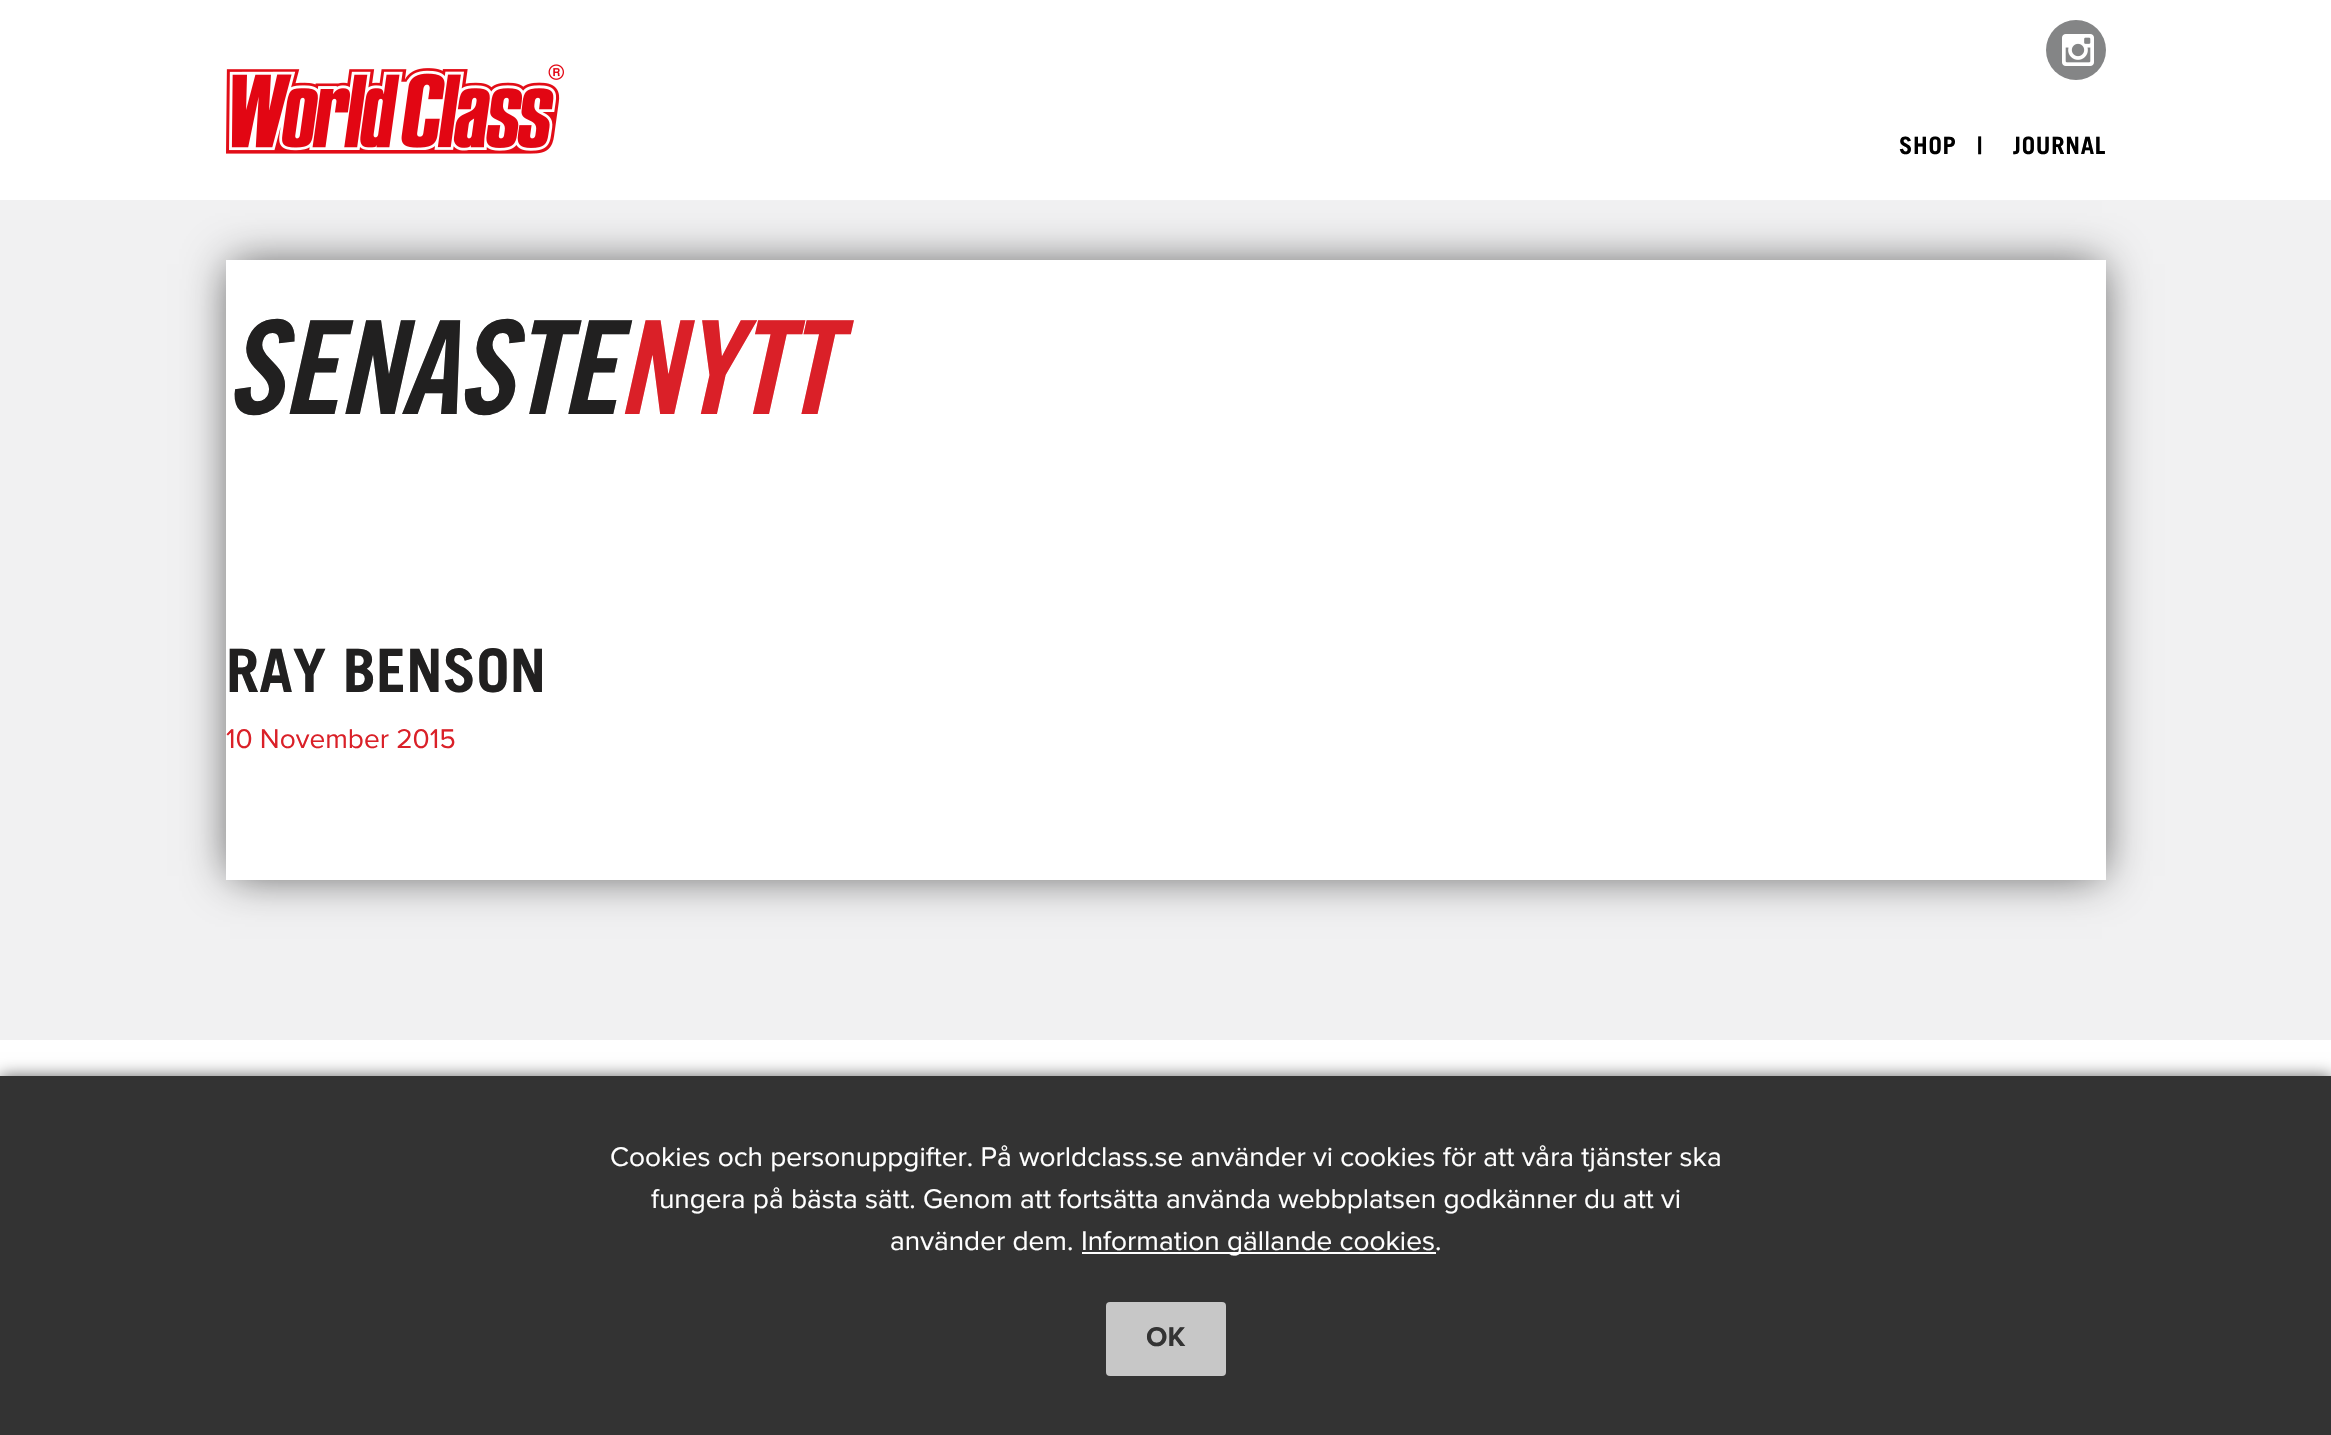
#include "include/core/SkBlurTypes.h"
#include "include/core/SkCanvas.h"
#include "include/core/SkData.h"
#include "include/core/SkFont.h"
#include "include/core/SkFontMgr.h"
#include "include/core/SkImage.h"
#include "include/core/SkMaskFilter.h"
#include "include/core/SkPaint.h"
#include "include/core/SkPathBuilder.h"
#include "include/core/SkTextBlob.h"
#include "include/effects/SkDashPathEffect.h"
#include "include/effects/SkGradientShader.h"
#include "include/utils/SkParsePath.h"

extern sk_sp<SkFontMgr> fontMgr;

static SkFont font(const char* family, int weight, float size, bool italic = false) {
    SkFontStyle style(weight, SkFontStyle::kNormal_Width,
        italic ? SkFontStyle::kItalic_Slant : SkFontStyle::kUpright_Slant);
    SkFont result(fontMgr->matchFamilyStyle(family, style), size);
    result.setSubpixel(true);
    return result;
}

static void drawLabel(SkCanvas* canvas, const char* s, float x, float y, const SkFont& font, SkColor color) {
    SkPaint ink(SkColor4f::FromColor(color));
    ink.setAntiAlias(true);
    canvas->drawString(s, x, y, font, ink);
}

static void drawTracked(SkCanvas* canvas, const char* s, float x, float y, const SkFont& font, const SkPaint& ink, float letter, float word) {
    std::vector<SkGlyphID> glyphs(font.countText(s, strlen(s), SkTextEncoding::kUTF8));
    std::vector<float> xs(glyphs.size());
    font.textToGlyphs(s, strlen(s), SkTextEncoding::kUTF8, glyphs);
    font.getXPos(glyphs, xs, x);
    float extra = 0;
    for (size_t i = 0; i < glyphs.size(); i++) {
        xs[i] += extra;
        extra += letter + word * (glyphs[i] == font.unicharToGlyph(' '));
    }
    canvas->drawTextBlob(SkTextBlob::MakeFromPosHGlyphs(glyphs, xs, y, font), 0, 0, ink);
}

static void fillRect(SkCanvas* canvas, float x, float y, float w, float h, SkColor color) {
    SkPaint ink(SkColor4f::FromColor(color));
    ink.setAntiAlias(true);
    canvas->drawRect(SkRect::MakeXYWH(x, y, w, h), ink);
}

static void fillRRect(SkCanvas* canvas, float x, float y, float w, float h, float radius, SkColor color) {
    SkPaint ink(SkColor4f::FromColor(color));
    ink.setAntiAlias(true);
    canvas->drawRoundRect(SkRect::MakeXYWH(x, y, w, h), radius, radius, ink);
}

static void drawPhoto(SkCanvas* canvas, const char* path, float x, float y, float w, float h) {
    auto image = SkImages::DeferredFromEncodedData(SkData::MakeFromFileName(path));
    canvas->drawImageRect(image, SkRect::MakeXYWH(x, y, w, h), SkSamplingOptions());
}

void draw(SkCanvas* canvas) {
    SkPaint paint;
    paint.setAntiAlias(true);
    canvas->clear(0xFFF1F1F2);
    fillRect(canvas, 0, 0, 2331, 200, 0xFFFFFFFF);
    paint.setColor(0xFF848586);
    canvas->drawCircle(2076, 50, 30, paint);
    drawPhoto(canvas, "assets/img1.png", 2062, 34, 32, 32);
    drawPhoto(canvas, "assets/img2.png", 226, 64, 338, 90);
    SkFont font1 = font("Trade Gothic", 700, 24);
    paint.setColor(0xFF000000);
    drawTracked(canvas, "SHOP", 1899, 154, font1, paint, 0.75f, 0);
    drawTracked(canvas, "|", 1977, 154, font1, paint, 0.75f, 0);
    drawTracked(canvas, "JOURNAL", 2013, 154, font1, paint, 0.75f, 0);
    paint.setColor(0xA1000000);
    paint.setMaskFilter(SkMaskFilter::MakeBlur(kNormal_SkBlurStyle, 21));
    canvas->drawRect(SkRect::MakeXYWH(230, 264, 1872, 612), paint);
    paint.setMaskFilter(nullptr);
    fillRect(canvas, 226, 260, 1880, 620, 0xFFFFFFFF);
    SkFont font2 = font("Trade Gothic", 700, 130, true);
    paint.setColor(0xFF212020);
    drawTracked(canvas, "SENASTE", 226, 414, font2, paint, -2, 0);
    paint.setColor(0xFFDA2028);
    drawTracked(canvas, "NYTT", 617, 414, font2, paint, -2, 0);
    SkFont font3 = font("Trade Gothic", 700, 60);
    drawLabel(canvas, "RAY BENSON", 226, 692, font3, 0xFF212020);
    SkFont font4 = font("Proxima Nova", 400, 28);
    drawLabel(canvas, "10 November 2015", 226, 748, font4, 0xFFDA2028);
    fillRect(canvas, 0, 1040, 2331, 36, 0xFFFFFFFF);
    paint.setColor(0x99000000);
    paint.setMaskFilter(SkMaskFilter::MakeBlur(kNormal_SkBlurStyle, 8));
    canvas->drawRect(SkRect::MakeXYWH(0, 1076, 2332, 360), paint);
    paint.setMaskFilter(nullptr);
    fillRect(canvas, 0, 1076, 2331, 359, 0xFF333333);
    drawLabel(canvas, "Cookies och personuppgifter. På worldclass.se använder vi cookies för att våra tjänster ska", 610, 1166, font4, 0xFFFFFFFF);
    drawLabel(canvas, "fungera på bästa sätt. Genom att fortsätta använda webbplatsen godkänner du att vi", 651, 1208, font4, 0xFFFFFFFF);
    drawLabel(canvas, "använder dem.", 890, 1250, font4, 0xFFFFFFFF);
    fillRect(canvas, 1082, 1252, 354, 2, 0xFFFFFFFF);
    drawLabel(canvas, "Information gällande cookies.", 1081, 1250, font4, 0xFFFFFFFF);
    fillRRect(canvas, 1106, 1302, 120, 74, 4, 0xFFC7C7C7);
    SkFont font5 = font("Proxima Nova", 700, 28);
    drawLabel(canvas, "OK", 1146, 1346, font5, 0xFF333333);
}
